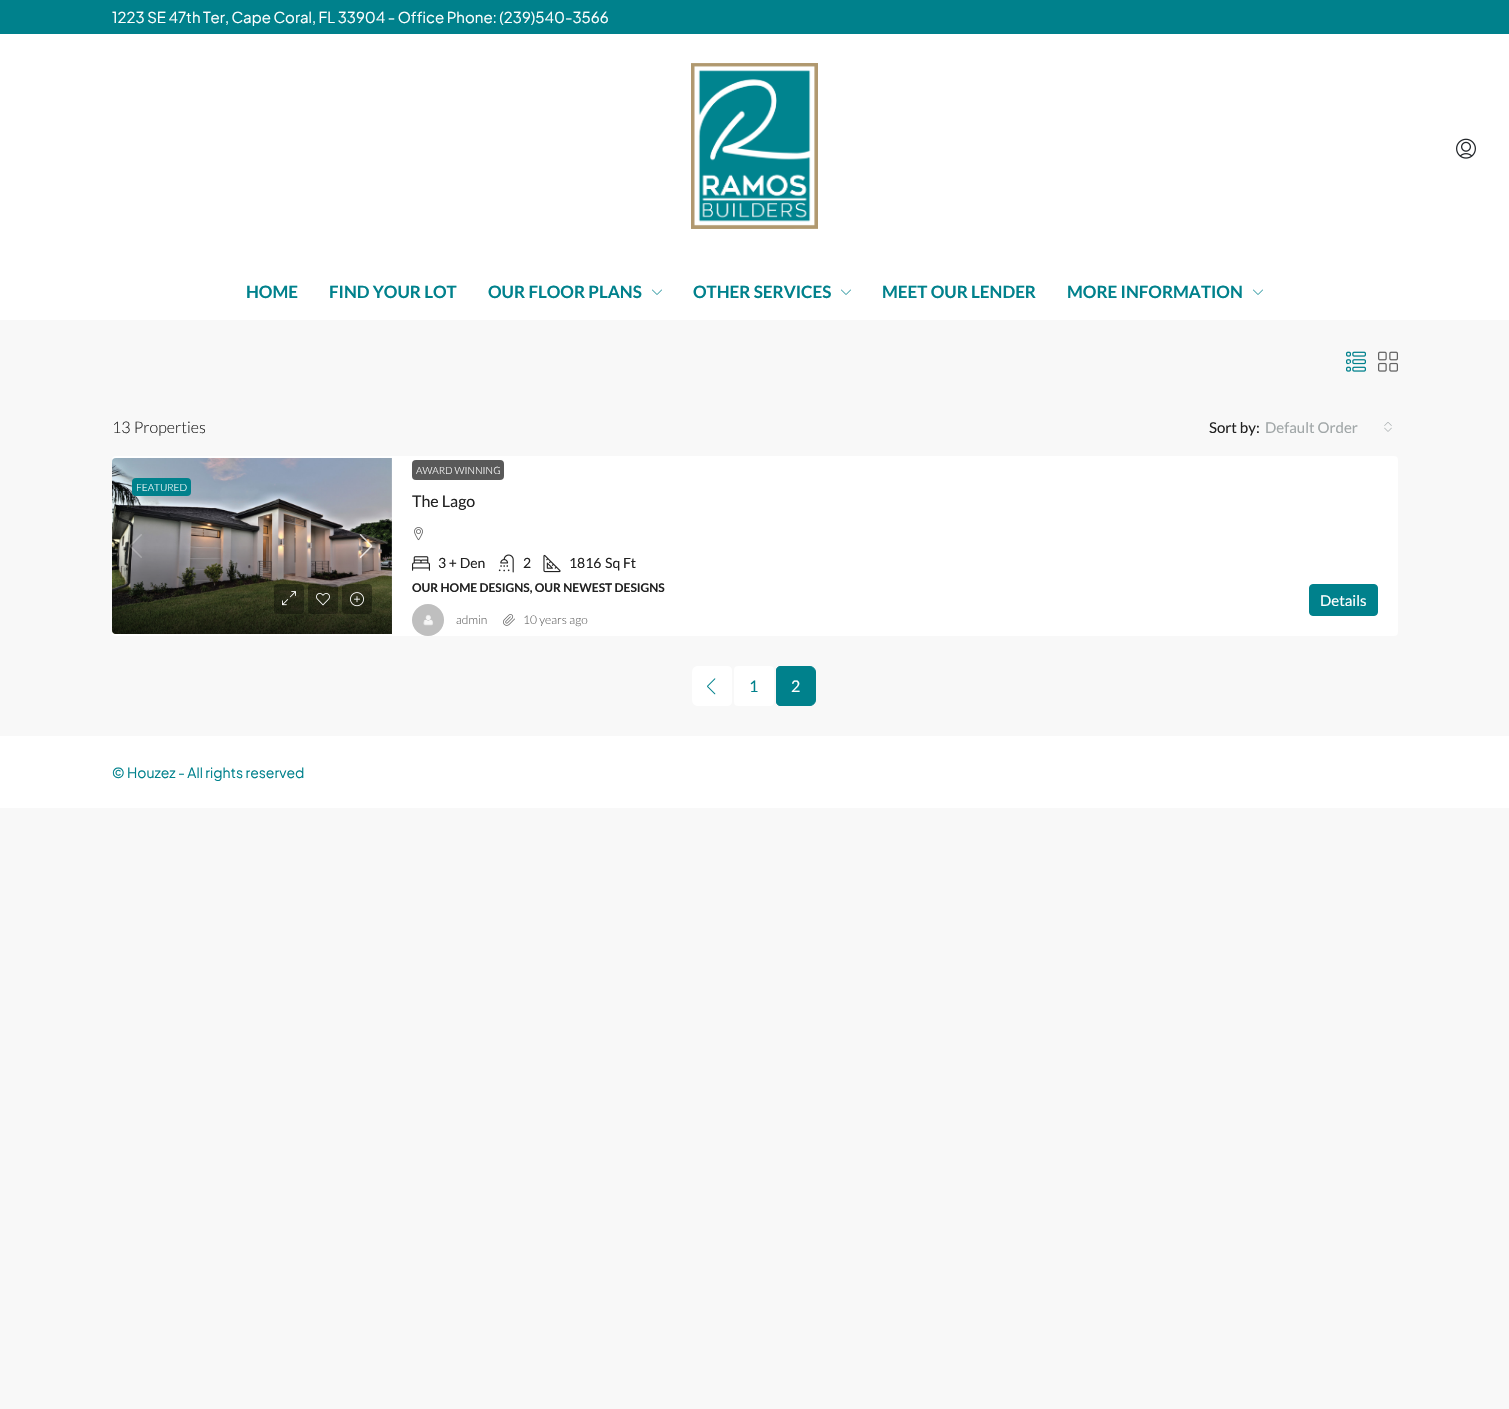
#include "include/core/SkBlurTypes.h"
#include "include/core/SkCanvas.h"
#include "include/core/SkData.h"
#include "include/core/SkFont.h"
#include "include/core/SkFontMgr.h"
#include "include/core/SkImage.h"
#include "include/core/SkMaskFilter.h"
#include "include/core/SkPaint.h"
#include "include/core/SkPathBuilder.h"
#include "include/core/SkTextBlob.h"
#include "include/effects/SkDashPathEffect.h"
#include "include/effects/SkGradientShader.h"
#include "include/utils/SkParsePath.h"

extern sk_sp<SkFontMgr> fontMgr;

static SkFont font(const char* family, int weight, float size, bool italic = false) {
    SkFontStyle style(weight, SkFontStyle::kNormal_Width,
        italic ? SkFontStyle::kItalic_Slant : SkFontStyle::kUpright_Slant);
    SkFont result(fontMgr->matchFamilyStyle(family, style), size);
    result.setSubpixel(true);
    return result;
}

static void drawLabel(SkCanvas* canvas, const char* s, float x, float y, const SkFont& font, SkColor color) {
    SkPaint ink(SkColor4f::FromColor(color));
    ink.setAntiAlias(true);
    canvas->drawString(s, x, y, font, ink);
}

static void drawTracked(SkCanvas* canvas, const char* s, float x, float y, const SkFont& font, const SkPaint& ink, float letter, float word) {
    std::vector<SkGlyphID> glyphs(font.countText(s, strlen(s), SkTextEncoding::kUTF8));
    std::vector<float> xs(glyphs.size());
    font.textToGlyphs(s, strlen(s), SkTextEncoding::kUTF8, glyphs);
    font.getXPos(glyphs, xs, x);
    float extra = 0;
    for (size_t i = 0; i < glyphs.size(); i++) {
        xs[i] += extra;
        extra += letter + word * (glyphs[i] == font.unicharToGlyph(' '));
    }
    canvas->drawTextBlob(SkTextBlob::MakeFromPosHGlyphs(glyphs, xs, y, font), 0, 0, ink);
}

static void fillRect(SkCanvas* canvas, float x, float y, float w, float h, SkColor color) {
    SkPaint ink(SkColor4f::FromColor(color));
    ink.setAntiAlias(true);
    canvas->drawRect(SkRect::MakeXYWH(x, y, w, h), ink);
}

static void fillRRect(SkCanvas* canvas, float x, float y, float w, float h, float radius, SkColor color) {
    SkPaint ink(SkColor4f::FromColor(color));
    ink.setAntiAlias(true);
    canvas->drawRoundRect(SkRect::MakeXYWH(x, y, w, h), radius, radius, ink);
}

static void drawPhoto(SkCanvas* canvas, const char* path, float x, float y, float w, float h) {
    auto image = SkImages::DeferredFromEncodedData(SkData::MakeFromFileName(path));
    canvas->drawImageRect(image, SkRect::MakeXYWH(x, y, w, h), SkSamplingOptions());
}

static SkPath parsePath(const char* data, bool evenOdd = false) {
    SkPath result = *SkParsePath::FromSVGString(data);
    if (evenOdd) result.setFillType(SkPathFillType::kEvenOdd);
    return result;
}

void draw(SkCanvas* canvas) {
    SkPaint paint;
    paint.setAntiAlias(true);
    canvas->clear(0xFFF8F8F8);
    fillRect(canvas, 0, 0, 1509, 34, 0xFF00818C);
    SkFont font1 = font("Plus Jakarta Sans", 400, 15);
    paint.setColor(0xFFFFFFFF);
    drawTracked(canvas, "1223 SE 47th Ter, Cape Coral, FL 33904 - Office Phone: (239)540-3566", 112, 23, font1, paint, 0, -0.1f);
    fillRect(canvas, 0, 34, 1509, 286, 0xFFFFFFFF);
    drawPhoto(canvas, "assets/img1.png", 691, 63, 127, 166);
    drawPhoto(canvas, "assets/img2.png", 1456, 138, 20, 21);
    SkFont font2 = font("Lato", 700, 17);
    drawLabel(canvas, "HOME", 246, 298, font2, 0xFF00818C);
    drawLabel(canvas, "FIND YOUR LOT", 329, 298, font2, 0xFF00818C);
    drawLabel(canvas, "OUR FLOOR PLANS", 488, 298, font2, 0xFF00818C);
    drawPhoto(canvas, "assets/img3.png", 652, 289, 10, 6);
    drawLabel(canvas, "OTHER SERVICES", 693, 298, font2, 0xFF00818C);
    drawPhoto(canvas, "assets/img3.png", 841, 289, 10, 6);
    drawLabel(canvas, "MEET OUR LENDER", 882, 298, font2, 0xFF00818C);
    drawLabel(canvas, "MORE INFORMATION", 1067, 298, font2, 0xFF00818C);
    drawPhoto(canvas, "assets/img3.png", 1253, 289, 10, 6);
    drawPhoto(canvas, "assets/img4.png", 1346, 351, 20, 21);
    drawPhoto(canvas, "assets/img5.png", 1378, 351, 20, 21);
    SkFont font3 = font("Lato", 300, 16);
    drawLabel(canvas, "13 Properties", 112, 433, font3, 0xFF222222);
    SkFont font4 = font("Lato", 400, 15);
    drawLabel(canvas, "Sort by:", 1209, 433, font4, 0xFF222222);
    drawLabel(canvas, "Default Order", 1265, 433, font4, 0xFFA1A7A8);
    drawPhoto(canvas, "assets/img6.png", 1384, 422, 8, 10);
    fillRRect(canvas, 112, 456, 1286, 180, 4, 0xFFFFFFFF);
    drawPhoto(canvas, "assets/img7.png", 112, 458, 280, 176);
    {
        const SkColor colors[] = {0x00000000, 0x00000000, 0xBF000000};
        const float stops[] = {0, 0.5f, 1};
        const SkPoint ends[] = {{252, 458}, {252, 634}};
        paint.setShader(SkGradientShader::MakeLinear(ends, colors, stops, 3, SkTileMode::kClamp));
        paint.setAlpha(255);
    }
    canvas->drawPath(parsePath("M116 458H392V634H116C114 634 112 632 112 630V462C112 460 114 458 116 458Z"), paint);
    drawPhoto(canvas, "assets/img8.png", 129, 534, 13, 24);
    drawPhoto(canvas, "assets/img9.png", 359, 534, 14, 24);
    fillRRect(canvas, 132, 478, 59, 18, 4, 0xFF00818C);
    SkFont font5 = font("Lato", 300, 10);
    drawLabel(canvas, "FEATURED", 136, 491, font5, 0xFFFFFFFF);
    fillRRect(canvas, 274, 584, 30, 30, 4, 0x59000000);
    drawPhoto(canvas, "assets/img10.png", 282, 591, 14, 15);
    fillRRect(canvas, 308, 584, 30, 30, 4, 0x59000000);
    drawPhoto(canvas, "assets/img11.png", 316, 593, 14, 13);
    fillRRect(canvas, 342, 584, 30, 30, 4, 0x59000000);
    drawPhoto(canvas, "assets/img12.png", 350, 592, 14, 15);
    fillRRect(canvas, 412, 460, 92, 20, 4, 0xFF595959);
    drawLabel(canvas, "AWARD WINNING", 416, 474, font5, 0xFFFFFFFF);
    SkFont font6 = font("Lato", 400, 16);
    drawLabel(canvas, "The Lago", 412, 507, font6, 0xFF222222);
    drawPhoto(canvas, "assets/img13.png", 414, 527, 9, 14);
    drawPhoto(canvas, "assets/img14.png", 412, 556, 18, 15);
    SkFont font7 = font("Lato", 400, 14);
    drawLabel(canvas, "3 + Den", 438, 568, font7, 0xFF222222);
    drawPhoto(canvas, "assets/img15.png", 498, 554, 16, 19);
    drawLabel(canvas, "2", 523, 568, font7, 0xFF222222);
    drawPhoto(canvas, "assets/img16.png", 543, 554, 18, 19);
    drawLabel(canvas, "1816", 569, 568, font7, 0xFF222222);
    drawLabel(canvas, "Sq Ft", 605, 568, font7, 0xFF222222);
    SkFont font8 = font("Lato", 700, 12);
    drawLabel(canvas, "OUR HOME DESIGNS, OUR NEWEST DESIGNS", 412, 592, font8, 0xFF222222);
    paint.setShader(nullptr);
    paint.setColor(0xFF00818C);
    canvas->drawRoundRect(SkRect::MakeXYWH(1309.5f, 584.5f, 68, 31), 3.5f, 3.5f, paint);
    paint.setStroke(true);
    paint.setStrokeWidth(1);
    canvas->drawRoundRect(SkRect::MakeXYWH(1309.5f, 584.5f, 68, 31), 3.5f, 3.5f, paint);
    drawLabel(canvas, "Details", 1320, 606, font4, 0xFFFFFFFF);
    drawPhoto(canvas, "assets/img17.png", 412, 604, 32, 32);
    SkFont font9 = font("Lato", 300, 12);
    drawLabel(canvas, "admin", 456, 624, font9, 0xFF636363);
    drawPhoto(canvas, "assets/img18.png", 503, 614, 12, 12);
    drawLabel(canvas, "10 years ago", 523, 624, font9, 0xFF636363);
    paint.setStroke(false);
    paint.setColor(0xFFFFFFFF);
    canvas->drawPath(parsePath("M698 666H728C730 666 732 668 732 670V702C732 704 730 706 728 706H698C694.5 706 692 703.5 692 700V672C692 668.5 694.5 666 698 666Z"), paint);
    drawPhoto(canvas, "assets/img19.png", 707, 678, 9, 17);
    fillRRect(canvas, 734, 666, 40, 40, 4, 0xFFFFFFFF);
    drawLabel(canvas, "1", 749, 692, font6, 0xFF00818C);
    paint.setColor(0xFF00818C);
    canvas->drawPath(parsePath("M780 666.5H810C813 666.5 815.5 669 815.5 672V700C815.5 703 813 705.5 810 705.5H780C778 705.5 776.5 704 776.5 702V670C776.5 668 778 666.5 780 666.5Z"), paint);
    paint.setStroke(true);
    canvas->drawPath(parsePath("M780 666.5H810C813 666.5 815.5 669 815.5 672V700C815.5 703 813 705.5 810 705.5H780C778 705.5 776.5 704 776.5 702V670C776.5 668 778 666.5 780 666.5Z"), paint);
    drawLabel(canvas, "2", 791, 692, font6, 0xFFFFFFFF);
    fillRect(canvas, 0, 736, 1509, 72, 0xFFFFFFFF);
    SkFont font10 = font("Plus Jakarta Sans", 400, 14);
    drawLabel(canvas, "© Houzez - All rights reserved", 112, 778, font10, 0xFF00818C);
}
